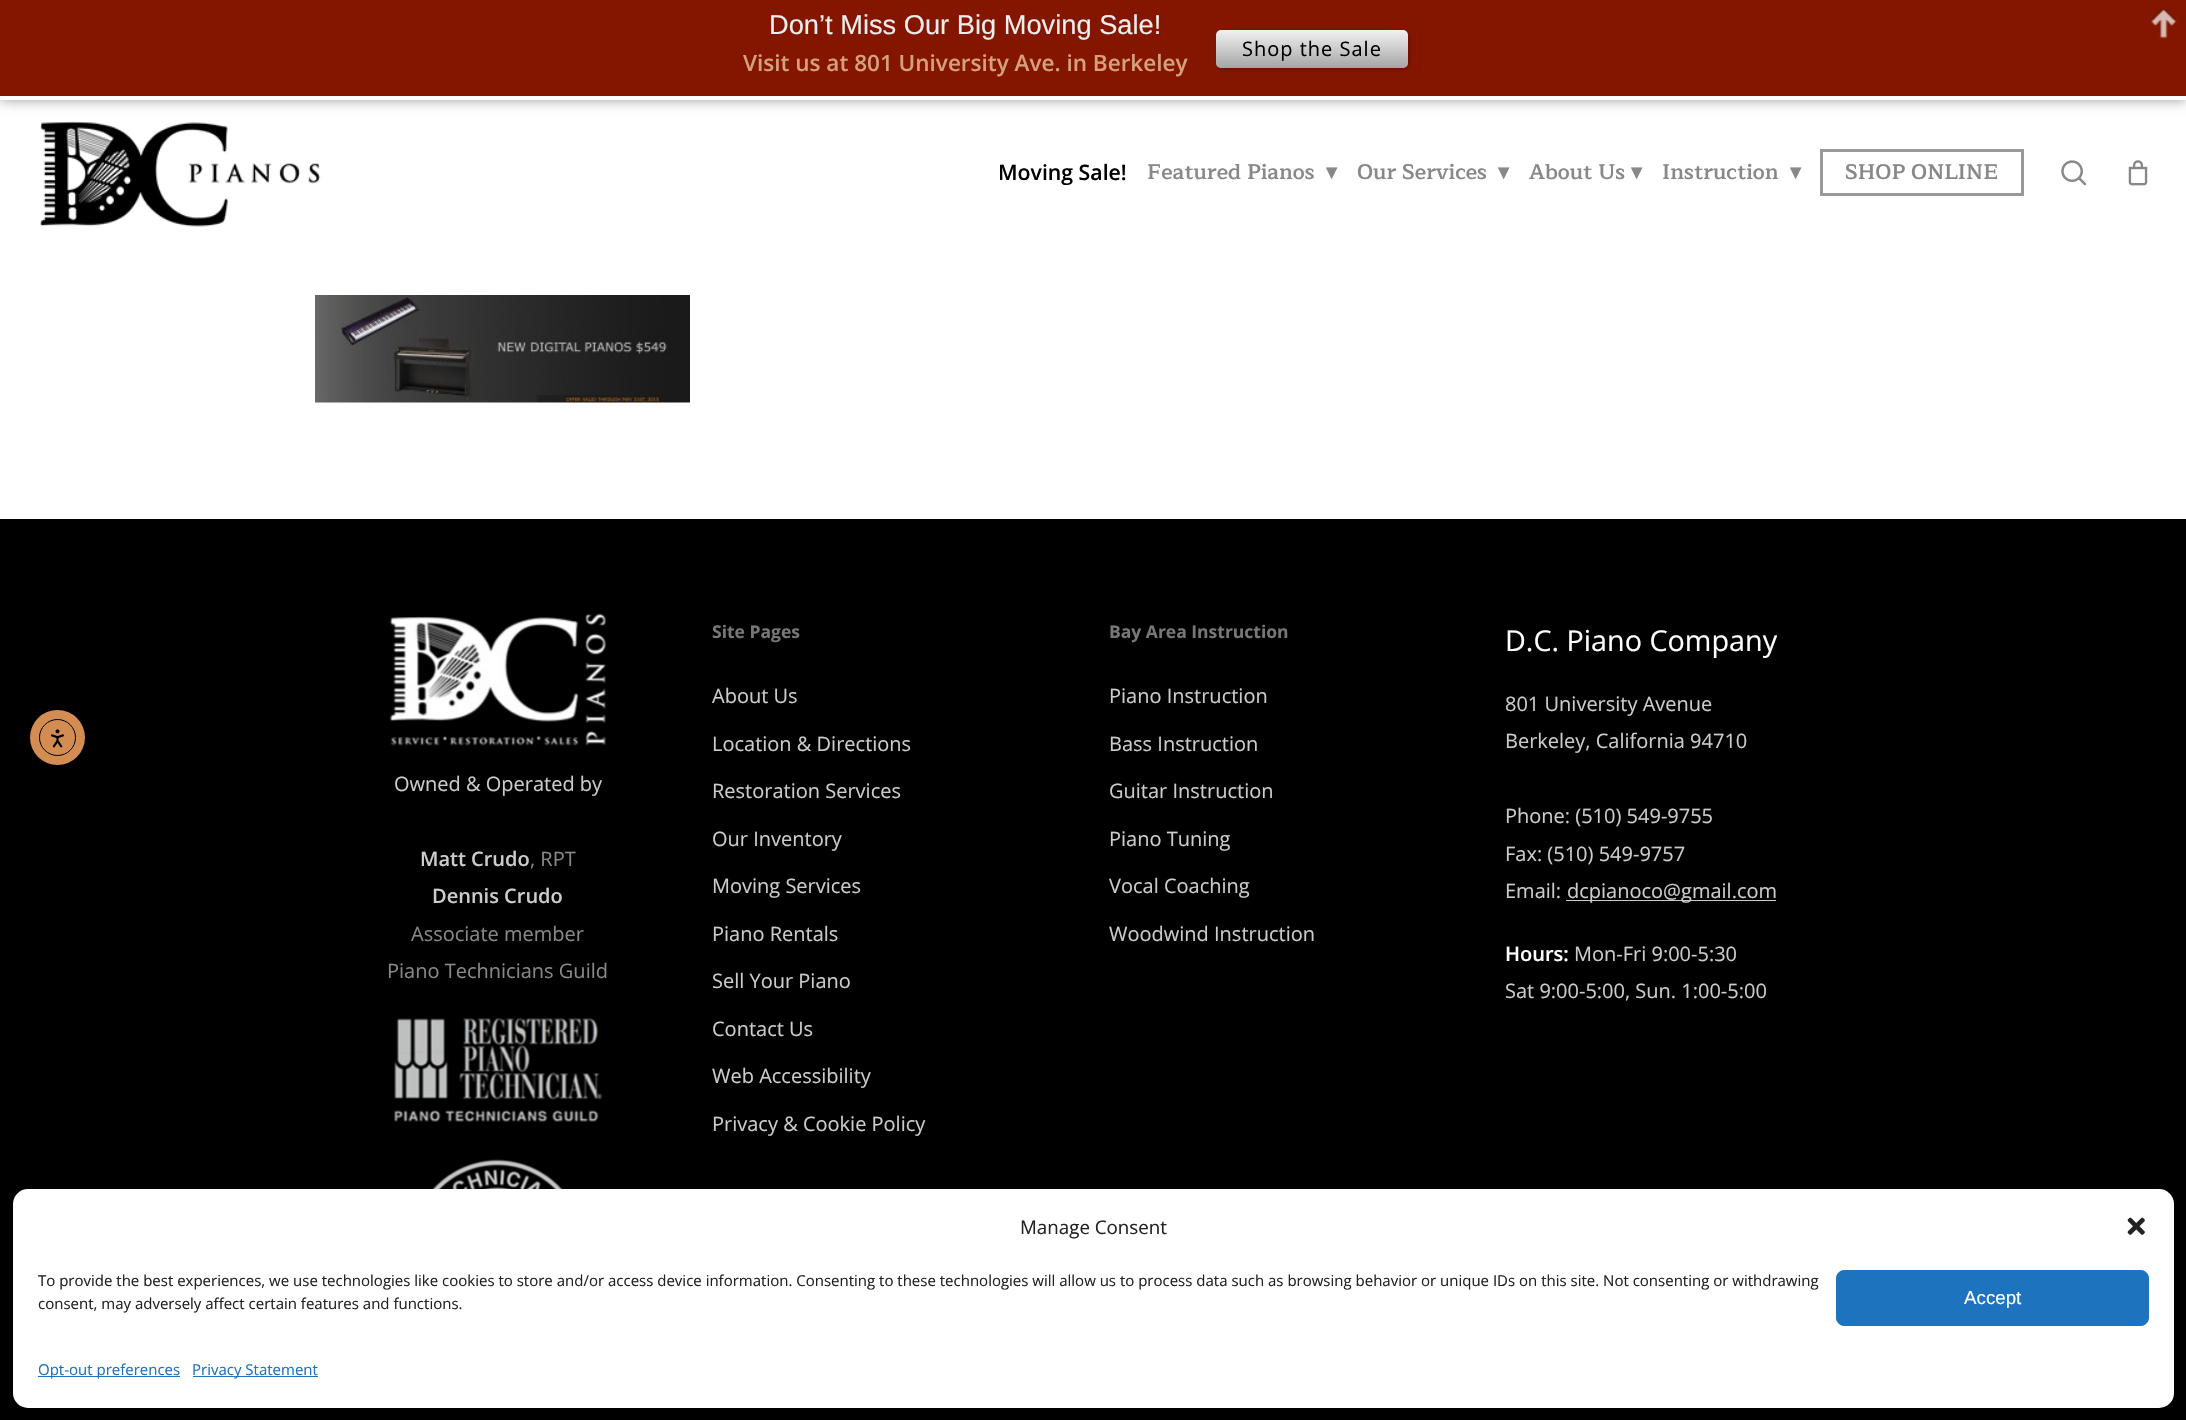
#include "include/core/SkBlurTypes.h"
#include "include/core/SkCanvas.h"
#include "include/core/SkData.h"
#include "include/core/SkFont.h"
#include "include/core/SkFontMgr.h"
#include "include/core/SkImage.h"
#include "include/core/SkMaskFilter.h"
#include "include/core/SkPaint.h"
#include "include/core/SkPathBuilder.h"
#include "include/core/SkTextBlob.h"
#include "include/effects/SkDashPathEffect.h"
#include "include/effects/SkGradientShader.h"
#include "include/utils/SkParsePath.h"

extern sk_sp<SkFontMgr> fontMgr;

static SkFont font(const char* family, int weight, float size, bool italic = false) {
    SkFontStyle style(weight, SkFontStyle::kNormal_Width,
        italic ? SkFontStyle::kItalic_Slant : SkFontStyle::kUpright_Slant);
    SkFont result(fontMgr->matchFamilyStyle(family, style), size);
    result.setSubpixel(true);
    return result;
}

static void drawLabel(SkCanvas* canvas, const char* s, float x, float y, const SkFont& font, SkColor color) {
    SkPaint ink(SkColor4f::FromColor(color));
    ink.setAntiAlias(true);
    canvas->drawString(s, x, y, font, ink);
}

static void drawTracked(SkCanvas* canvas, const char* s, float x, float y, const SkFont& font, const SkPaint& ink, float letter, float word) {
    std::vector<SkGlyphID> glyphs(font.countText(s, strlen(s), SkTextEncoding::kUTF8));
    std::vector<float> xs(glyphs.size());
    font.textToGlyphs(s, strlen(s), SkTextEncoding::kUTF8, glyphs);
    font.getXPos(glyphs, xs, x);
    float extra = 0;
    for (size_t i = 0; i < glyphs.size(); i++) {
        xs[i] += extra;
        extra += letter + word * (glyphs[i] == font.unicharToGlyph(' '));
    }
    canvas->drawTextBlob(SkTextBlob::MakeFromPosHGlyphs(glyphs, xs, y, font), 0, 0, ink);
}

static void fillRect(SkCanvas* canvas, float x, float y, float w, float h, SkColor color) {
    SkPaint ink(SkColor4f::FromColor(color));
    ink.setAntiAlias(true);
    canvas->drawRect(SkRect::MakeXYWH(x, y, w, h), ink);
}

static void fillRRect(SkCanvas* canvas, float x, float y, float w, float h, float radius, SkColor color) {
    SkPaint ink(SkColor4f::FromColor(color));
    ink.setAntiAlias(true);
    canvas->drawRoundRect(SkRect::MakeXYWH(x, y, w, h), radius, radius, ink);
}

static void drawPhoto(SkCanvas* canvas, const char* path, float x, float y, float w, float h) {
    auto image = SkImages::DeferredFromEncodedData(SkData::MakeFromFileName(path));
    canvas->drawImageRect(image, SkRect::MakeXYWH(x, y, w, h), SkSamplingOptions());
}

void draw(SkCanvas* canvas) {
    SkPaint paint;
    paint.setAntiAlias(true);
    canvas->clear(0xFFFFFFFF);
    paint.setColor(0x66000000);
    paint.setMaskFilter(SkMaskFilter::MakeBlur(kNormal_SkBlurStyle, 6));
    canvas->drawRect(SkRect::MakeXYWH(0, 0, 2186, 100), paint);
    paint.setMaskFilter(nullptr);
    fillRect(canvas, 0, 0, 2186, 96, 0xFF841600);
    fillRect(canvas, 0, 96, 2186, 4, 0xFFFFFFFF);
    SkFont font1 = font("Liberation Sans", 400, 27.25f);
    drawLabel(canvas, "Don’t Miss Our Big Moving Sale!", 769, 34, font1, 0xFFEDEDED);
    SkFont font2 = font("Open Sans", 600, 22.5f);
    drawLabel(canvas, "Visit us at 801 University Ave. in Berkeley", 743, 71, font2, 0xFFD6A07D);
    paint.setColor(0x47000000);
    paint.setMaskFilter(SkMaskFilter::MakeBlur(kNormal_SkBlurStyle, 2));
    canvas->drawRoundRect(SkRect::MakeXYWH(1218, 31, 191, 38), 5, 5, paint);
    paint.setMaskFilter(nullptr);
    fillRRect(canvas, 1216, 30, 192, 38, 5, 0xFFF2F2F2);
    {
        const SkColor colors[] = {0x00333333, 0x66333333};
        const float stops[] = {0, 1};
        const SkPoint ends[] = {{1216, 30}, {1216, 68}};
        paint.setShader(SkGradientShader::MakeLinear(ends, colors, stops, 2, SkTileMode::kClamp));
        paint.setAlpha(255);
    }
    canvas->drawRoundRect(SkRect::MakeXYWH(1216, 30, 192, 38), 5, 5, paint);
    SkFont font3 = font("Open Sans", 400, 20);
    paint.setShader(nullptr);
    paint.setColor(0xFF000000);
    drawTracked(canvas, "Shop the Sale", 1242, 56, font3, paint, 1, 0);
    drawPhoto(canvas, "assets/img1.png", 2151, 8, 26, 31);
    fillRect(canvas, 0, 519, 2186, 901, 0xFF000000);
    paint.setColor(0xFFD38C51);
    canvas->drawCircle(57.5f, 737.5f, 27.5f, paint);
    paint.setStroke(true);
    paint.setStrokeWidth(1);
    paint.setColor(0xFF000000);
    canvas->drawCircle(57.5f, 737.5f, 18, paint);
    drawPhoto(canvas, "assets/img2.png", 50, 729, 14, 19);
    drawPhoto(canvas, "assets/img3.png", 40, 121, 281, 106);
    SkFont font4 = font("Open Sans", 600, 21.25f);
    drawLabel(canvas, "Moving Sale!", 998, 180, font4, 0xFF000000);
    SkFont font5 = font("Maitree", 600, 21.25f);
    drawLabel(canvas, "Featured Pianos", 1147, 179, font5, 0xFF888888);
    SkFont font6 = font("DejaVu Sans", 700, 21.25f);
    drawLabel(canvas, "▾", 1326, 179, font6, 0xFF888888);
    drawLabel(canvas, "Our Services", 1357, 179, font5, 0xFF888888);
    drawLabel(canvas, "▾", 1498, 179, font6, 0xFF888888);
    drawLabel(canvas, "About Us", 1529, 179, font5, 0xFF888888);
    drawLabel(canvas, "▾", 1631, 179, font6, 0xFF888888);
    drawLabel(canvas, "Instruction", 1662, 179, font5, 0xFF888888);
    drawLabel(canvas, "▾", 1790, 179, font6, 0xFF888888);
    paint.setStrokeWidth(3);
    paint.setColor(0xFF999999);
    canvas->drawRect(SkRect::MakeXYWH(1821.5f, 150.5f, 201, 44), paint);
    drawLabel(canvas, "SHOP ONLINE", 1845, 179, font5, 0xFF888888);
    drawPhoto(canvas, "assets/img4.png", 2061, 160, 26, 26);
    drawPhoto(canvas, "assets/img5.png", 2128, 160, 20, 26);
    drawPhoto(canvas, "assets/img6.png", 315, 295, 375, 108);
    drawPhoto(canvas, "assets/img7.png", 389, 613, 218, 133);
    drawLabel(canvas, "Owned & Operated by", 394, 791, font3, 0xFFCCCCCC);
    SkFont font7 = font("Open Sans", 600, 20);
    drawLabel(canvas, "Matt Crudo", 420, 866, font7, 0xFFCCCCCC);
    drawLabel(canvas, ", RPT", 530, 866, font3, 0xFF888888);
    drawLabel(canvas, "Dennis Crudo", 432, 903, font7, 0xFFCCCCCC);
    drawLabel(canvas, "Associate member", 411, 941, font3, 0xFF888888);
    drawLabel(canvas, "Piano Technicians Guild", 387, 978, font3, 0xFF888888);
    drawPhoto(canvas, "assets/img8.png", 394, 1018, 209, 104);
    drawPhoto(canvas, "assets/img9.png", 410, 1159, 175, 30);
    SkFont font8 = font("Open Sans", 700, 17.5f);
    drawLabel(canvas, "Site Pages", 712, 638, font8, 0xFF777777);
    drawLabel(canvas, "About Us", 712, 703, font3, 0xFFCCCCCC);
    drawLabel(canvas, "Location & Directions", 712, 751, font3, 0xFFCCCCCC);
    drawLabel(canvas, "Restoration Services", 712, 798, font3, 0xFFCCCCCC);
    drawLabel(canvas, "Our Inventory", 712, 846, font3, 0xFFCCCCCC);
    drawLabel(canvas, "Moving Services", 712, 893, font3, 0xFFCCCCCC);
    drawLabel(canvas, "Piano Rentals", 712, 941, font3, 0xFFCCCCCC);
    drawLabel(canvas, "Sell Your Piano", 712, 988, font3, 0xFFCCCCCC);
    drawLabel(canvas, "Contact Us", 712, 1036, font3, 0xFFCCCCCC);
    drawLabel(canvas, "Web Accessibility", 712, 1083, font3, 0xFFCCCCCC);
    drawLabel(canvas, "Privacy & Cookie Policy", 712, 1131, font3, 0xFFCCCCCC);
    drawLabel(canvas, "Bay Area Instruction", 1109, 638, font8, 0xFF777777);
    drawLabel(canvas, "Piano Instruction", 1109, 703, font3, 0xFFCCCCCC);
    drawLabel(canvas, "Bass Instruction", 1109, 751, font3, 0xFFCCCCCC);
    drawLabel(canvas, "Guitar Instruction", 1109, 798, font3, 0xFFCCCCCC);
    drawLabel(canvas, "Piano Tuning", 1109, 846, font3, 0xFFCCCCCC);
    drawLabel(canvas, "Vocal Coaching", 1109, 893, font3, 0xFFCCCCCC);
    drawLabel(canvas, "Woodwind Instruction", 1109, 941, font3, 0xFFCCCCCC);
    SkFont font9 = font("Open Sans", 400, 28.75f);
    drawLabel(canvas, "D.C. Piano Company", 1505, 651, font9, 0xFFFFFFFF);
    drawLabel(canvas, "801 University Avenue", 1505, 711, font3, 0xFFCCCCCC);
    drawLabel(canvas, "Berkeley, California 94710", 1505, 748, font3, 0xFFCCCCCC);
    drawLabel(canvas, "Phone: (510) 549-9755", 1505, 823, font3, 0xFFCCCCCC);
    drawLabel(canvas, "Fax: (510) 549-9757", 1505, 861, font3, 0xFFCCCCCC);
    drawLabel(canvas, "Email:", 1505, 898, font3, 0xFFCCCCCC);
    fillRect(canvas, 1566, 900, 210, 1, 0xFFCCCCCC);
    drawLabel(canvas, "dcpianoco@gmail.com", 1567, 898, font3, 0xFFCCCCCC);
    drawLabel(canvas, "Hours:", 1505, 961, font7, 0xFFFFFFFF);
    drawLabel(canvas, "Mon-Fri 9:00-5:30", 1574, 961, font3, 0xFFCCCCCC);
    drawLabel(canvas, "Sat 9:00-5:00, Sun. 1:00-5:00", 1505, 998, font3, 0xFFCCCCCC);
    fillRRect(canvas, 13, 1189, 2161, 219, 15, 0xFFFFFFFF);
    SkFont font10 = font("Open Sans", 400, 18.75f);
    drawLabel(canvas, "Manage Consent", 1020, 1234, font10, 0xFF222222);
    drawPhoto(canvas, "assets/img10.png", 2127, 1217, 18, 18);
    SkFont font11 = font("Open Sans", 400, 15);
    drawLabel(canvas, "To provide the best experiences, we use technologies like cookies to store and/or access device information. Consenting to these technologies will allow us to process data such as browsing behavior or unique IDs on this site. Not consenting or withdrawing", 38, 1286, font11, 0xFF222222);
    drawLabel(canvas, "consent, may adversely affect certain features and functions.", 38, 1309, font11, 0xFF222222);
    paint.setStroke(false);
    paint.setColor(0xFF1E73BE);
    canvas->drawRoundRect(SkRect::MakeXYWH(1836.5f, 1270.5f, 312, 55), 7.5f, 7.5f, paint);
    paint.setStroke(true);
    paint.setStrokeWidth(1);
    canvas->drawRoundRect(SkRect::MakeXYWH(1836.5f, 1270.5f, 312, 55), 7.5f, 7.5f, paint);
    SkFont font12 = font("Liberation Sans", 400, 18.75f);
    drawLabel(canvas, "Accept", 1964, 1304, font12, 0xFFFFFFFF);
    fillRect(canvas, 38, 1376, 142, 1, 0xFF1E73BE);
    drawLabel(canvas, "Opt-out preferences", 38, 1375, font11, 0xFF1E73BE);
    fillRect(canvas, 193, 1376, 125, 1, 0xFF1E73BE);
    drawLabel(canvas, "Privacy Statement", 192, 1375, font11, 0xFF1E73BE);
}
